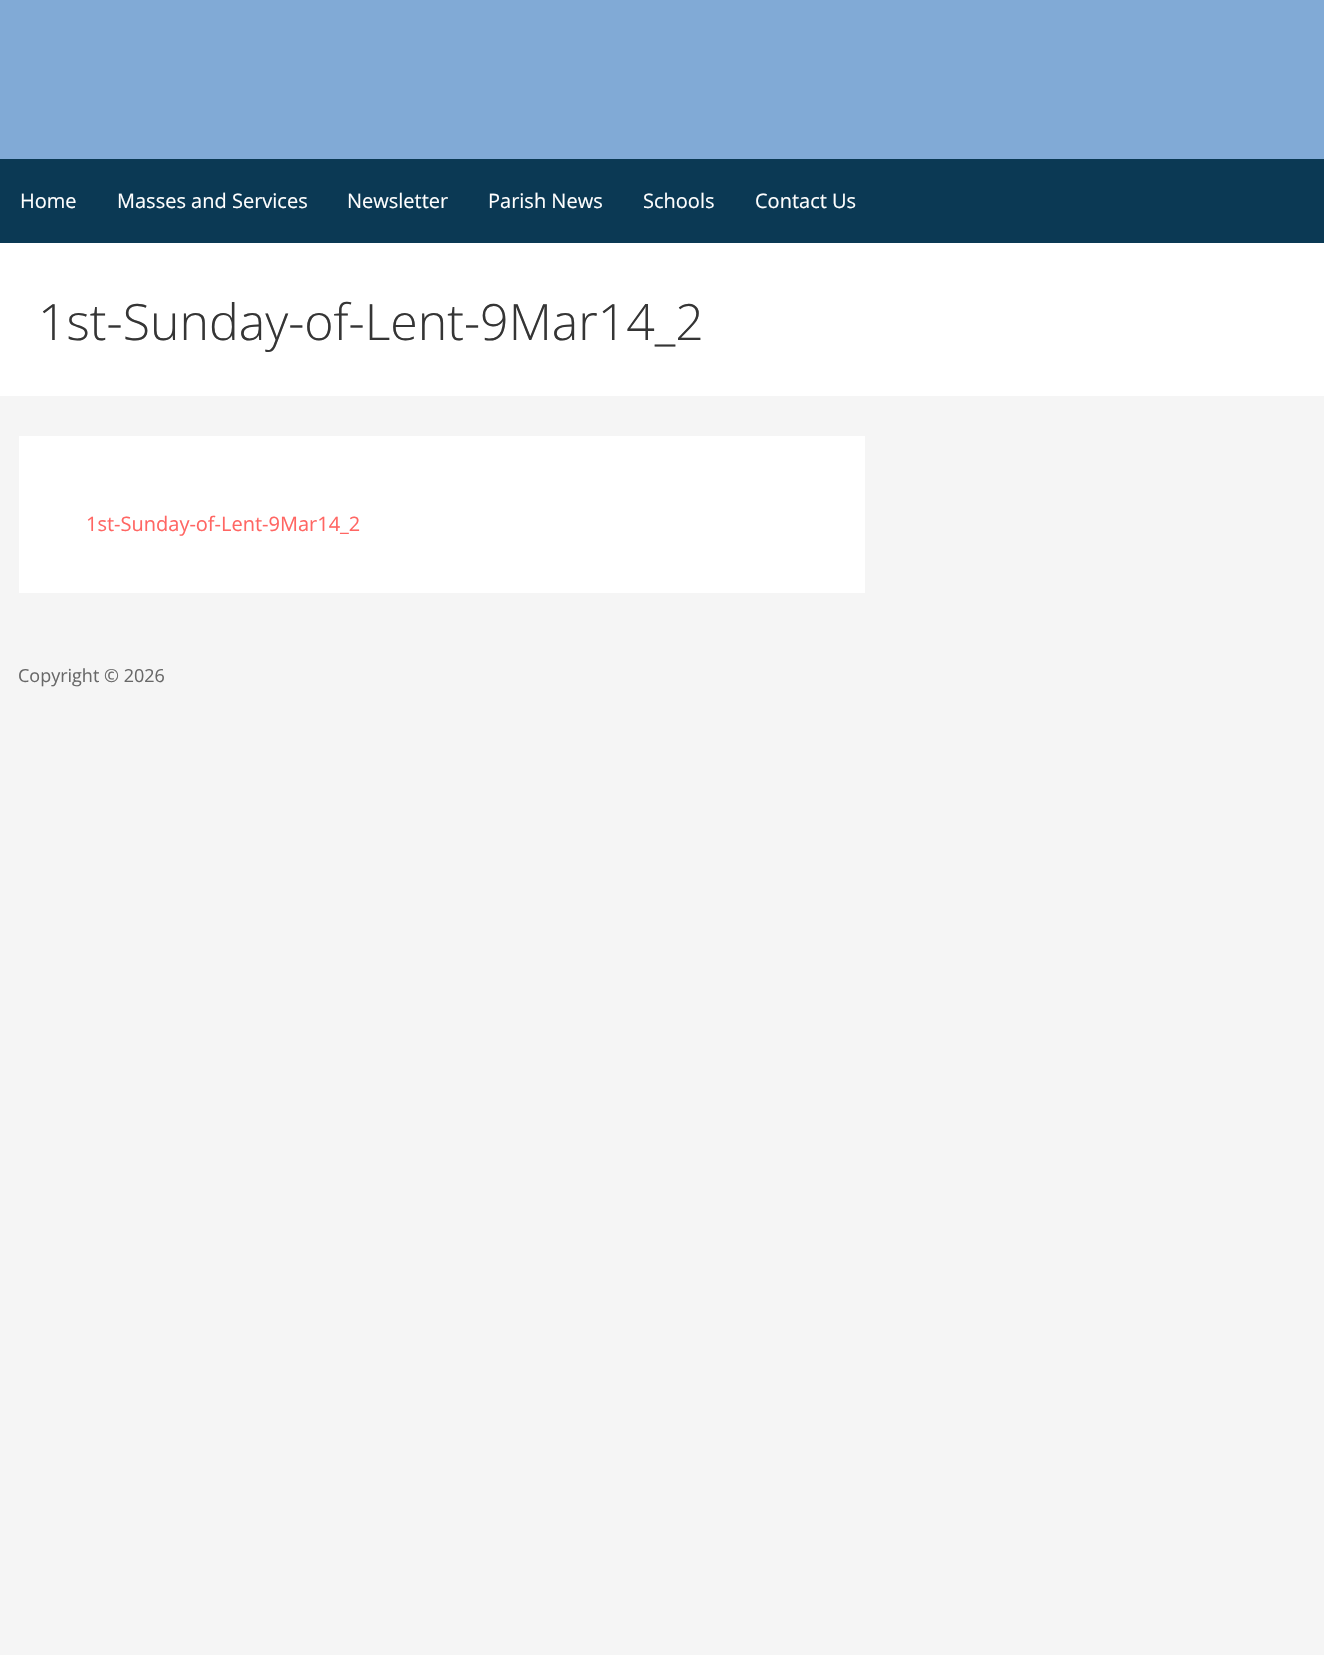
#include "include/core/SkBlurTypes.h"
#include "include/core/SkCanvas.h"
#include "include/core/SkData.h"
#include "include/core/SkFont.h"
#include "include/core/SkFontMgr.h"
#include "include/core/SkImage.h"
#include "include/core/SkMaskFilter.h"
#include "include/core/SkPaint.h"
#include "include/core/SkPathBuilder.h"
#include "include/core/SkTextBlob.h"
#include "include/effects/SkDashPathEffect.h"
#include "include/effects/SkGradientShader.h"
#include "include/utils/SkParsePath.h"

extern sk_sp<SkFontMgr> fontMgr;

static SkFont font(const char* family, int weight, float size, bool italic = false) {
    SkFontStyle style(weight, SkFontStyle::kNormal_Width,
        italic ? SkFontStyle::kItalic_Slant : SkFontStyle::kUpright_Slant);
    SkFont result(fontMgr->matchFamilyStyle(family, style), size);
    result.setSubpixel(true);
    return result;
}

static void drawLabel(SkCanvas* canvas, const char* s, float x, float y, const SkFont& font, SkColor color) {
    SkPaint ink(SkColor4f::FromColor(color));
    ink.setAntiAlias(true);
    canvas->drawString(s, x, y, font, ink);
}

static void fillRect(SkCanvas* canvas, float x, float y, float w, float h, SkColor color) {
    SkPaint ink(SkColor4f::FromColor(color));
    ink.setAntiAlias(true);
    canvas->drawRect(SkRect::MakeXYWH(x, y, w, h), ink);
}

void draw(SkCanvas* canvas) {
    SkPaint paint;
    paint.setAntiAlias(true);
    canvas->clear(0xFFF5F5F5);
    fillRect(canvas, 0, 0, 1324, 159, 0xFF81AAD6);
    fillRect(canvas, 0, 159, 1324, 84, 0xFF0B3954);
    SkFont font1 = font("Open Sans", 400, 20);
    drawLabel(canvas, "Home", 20, 208, font1, 0xFFFFFFFF);
    drawLabel(canvas, "Masses and Services", 117, 208, font1, 0xFFFFFFFF);
    drawLabel(canvas, "Newsletter", 347, 208, font1, 0xFFFFFFFF);
    drawLabel(canvas, "Parish News", 488, 208, font1, 0xFFFFFFFF);
    drawLabel(canvas, "Schools", 643, 208, font1, 0xFFFFFFFF);
    drawLabel(canvas, "Contact Us", 755, 208, font1, 0xFFFFFFFF);
    fillRect(canvas, 0, 243, 1324, 153, 0xFFFFFFFF);
    SkFont font2 = font("Open Sans", 300, 50);
    drawLabel(canvas, "1st-Sunday-of-Lent-9Mar14_2", 38, 340, font2, 0xFF353535);
    fillRect(canvas, 19, 436, 846, 157, 0xFFFFFFFF);
    drawLabel(canvas, "1st-Sunday-of-Lent-9Mar14_2", 86, 531, font1, 0xFFFF6663);
    SkFont font3 = font("Open Sans", 400, 18);
    drawLabel(canvas, "Copyright © 2026", 18, 682, font3, 0xFF686868);
}
